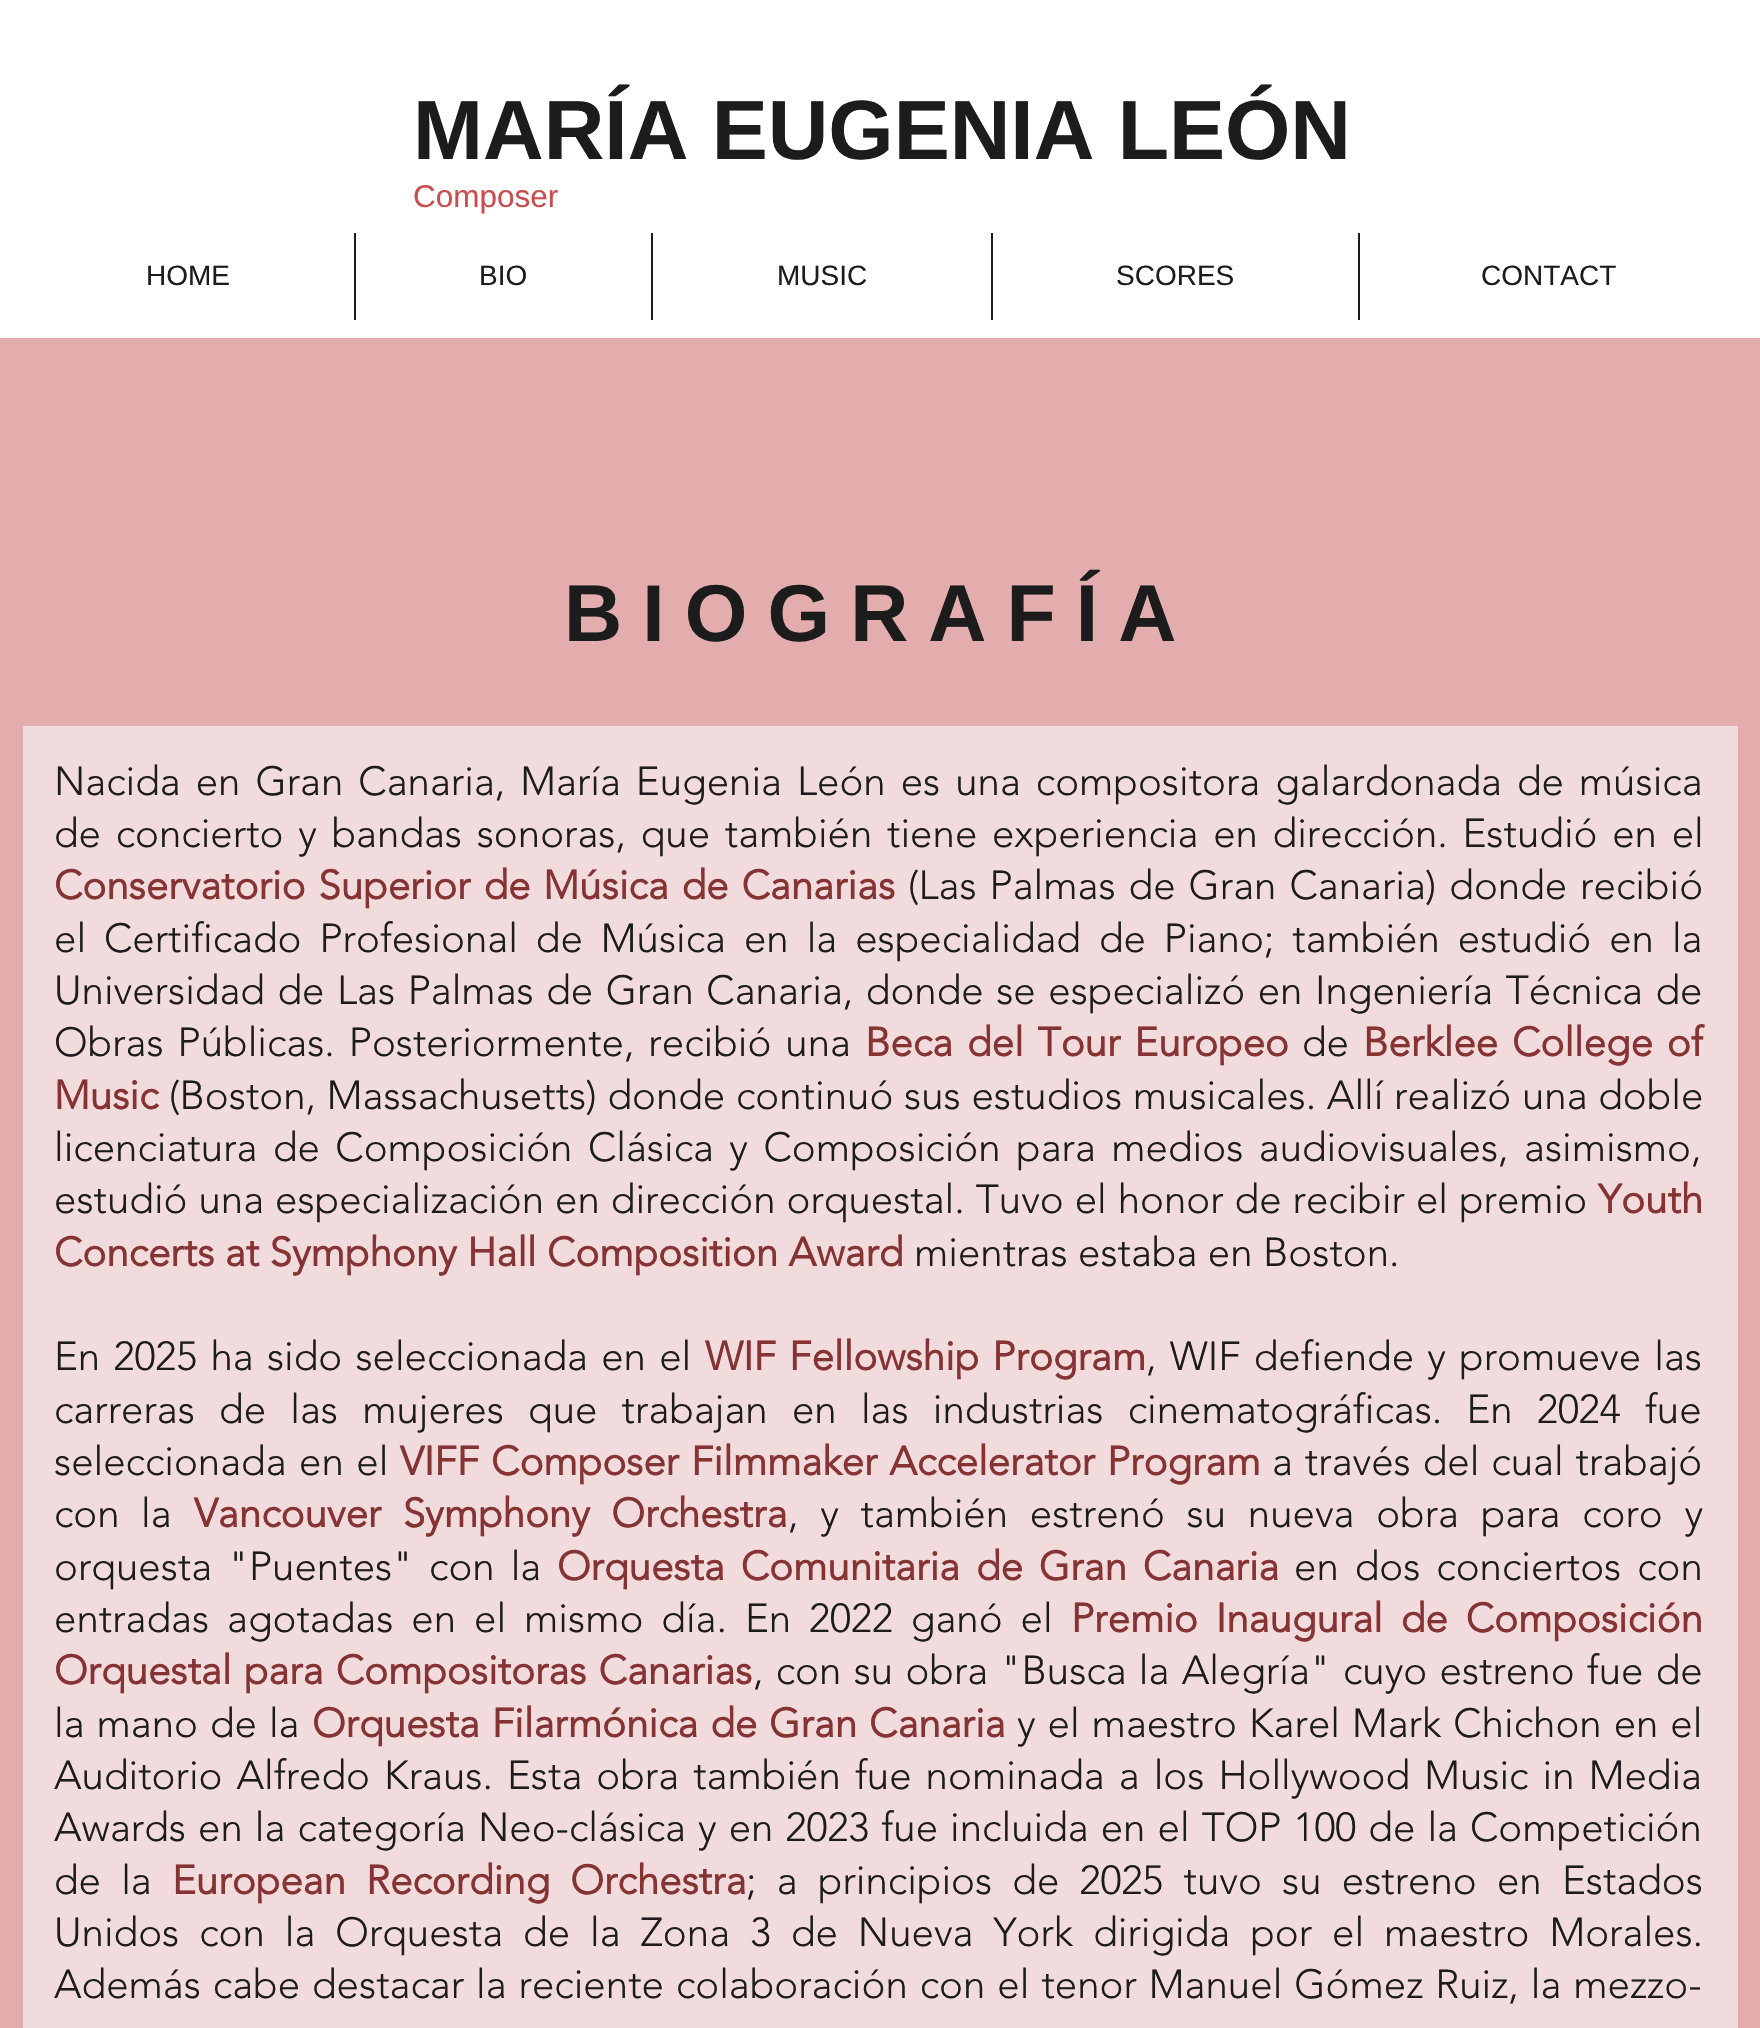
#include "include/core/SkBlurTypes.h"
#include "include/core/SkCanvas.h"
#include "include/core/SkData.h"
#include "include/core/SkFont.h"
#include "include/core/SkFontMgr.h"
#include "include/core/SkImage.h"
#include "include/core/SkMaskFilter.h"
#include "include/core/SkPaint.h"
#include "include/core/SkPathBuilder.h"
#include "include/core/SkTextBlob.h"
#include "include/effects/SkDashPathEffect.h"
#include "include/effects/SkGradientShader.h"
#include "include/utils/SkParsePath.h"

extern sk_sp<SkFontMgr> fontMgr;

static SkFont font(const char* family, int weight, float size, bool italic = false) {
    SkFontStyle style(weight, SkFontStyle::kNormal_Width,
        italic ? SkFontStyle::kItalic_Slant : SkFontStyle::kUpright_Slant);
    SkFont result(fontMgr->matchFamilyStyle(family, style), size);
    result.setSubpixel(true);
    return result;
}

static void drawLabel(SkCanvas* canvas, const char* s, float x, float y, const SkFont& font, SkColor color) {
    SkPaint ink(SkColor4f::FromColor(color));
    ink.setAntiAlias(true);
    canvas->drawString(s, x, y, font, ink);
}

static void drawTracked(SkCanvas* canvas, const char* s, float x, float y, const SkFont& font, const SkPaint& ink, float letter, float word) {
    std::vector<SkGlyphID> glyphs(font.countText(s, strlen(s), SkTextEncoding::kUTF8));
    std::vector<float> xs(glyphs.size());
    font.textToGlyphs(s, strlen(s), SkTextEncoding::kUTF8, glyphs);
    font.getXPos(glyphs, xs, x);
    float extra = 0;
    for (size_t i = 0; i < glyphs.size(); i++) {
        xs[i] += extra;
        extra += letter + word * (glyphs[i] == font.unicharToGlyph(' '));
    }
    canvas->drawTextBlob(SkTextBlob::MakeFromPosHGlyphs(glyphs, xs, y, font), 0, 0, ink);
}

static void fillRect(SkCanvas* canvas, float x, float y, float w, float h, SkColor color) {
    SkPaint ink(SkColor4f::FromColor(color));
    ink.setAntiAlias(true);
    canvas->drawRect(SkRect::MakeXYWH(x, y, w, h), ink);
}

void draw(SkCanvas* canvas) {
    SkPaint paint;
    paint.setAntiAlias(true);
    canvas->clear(0xFFFFFFFF);
    SkFont font1 = font("Liberation Sans", 700, 84);
    drawLabel(canvas, "MARÍA EUGENIA LEÓN", 413, 159, font1, 0xFF1C1C1C);
    SkFont font2 = font("Liberation Sans", 400, 31.5f);
    drawLabel(canvas, "Composer", 413, 207, font2, 0xFFCA4C4D);
    SkFont font3 = font("Liberation Sans", 400, 28);
    drawLabel(canvas, "HOME", 146, 285, font3, 0xFF1C1C1C);
    fillRect(canvas, 354, 233, 2, 87, 0xFF1C1C1C);
    drawLabel(canvas, "BIO", 479, 285, font3, 0xFF1C1C1C);
    fillRect(canvas, 651, 233, 2, 87, 0xFF1C1C1C);
    drawLabel(canvas, "MUSIC", 777, 285, font3, 0xFF1C1C1C);
    fillRect(canvas, 991, 233, 2, 87, 0xFF1C1C1C);
    drawLabel(canvas, "SCORES", 1116, 285, font3, 0xFF1C1C1C);
    fillRect(canvas, 1358, 233, 2, 87, 0xFF1C1C1C);
    drawLabel(canvas, "CONTACT", 1481, 285, font3, 0xFF1C1C1C);
    fillRect(canvas, 0, 338, 1760, 1690, 0xFFE3ADAE);
    SkFont font4 = font("Liberation Sans", 700, 80.5f);
    paint.setColor(0xFF1C1C1C);
    drawTracked(canvas, "BIOGRAFÍA", 564, 641, font4, paint, 20.1f, 0);
    fillRect(canvas, 23, 726, 1715, 1302, 0xFFF2DBDC);
    SkFont font5 = font("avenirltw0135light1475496", 300, 40.25f);
    drawTracked(canvas, "Nacida en Gran Canaria, María Eugenia León es una compositora galardonada de música", 54, 795, font5, paint, 0, 4.5f);
    drawTracked(canvas, "de concierto y bandas sonoras, que también tiene experiencia en dirección. Estudió en el", 54, 847, font5, paint, 0, 4.25f);
    SkFont font6 = font("avenirltw0135light1475496", 700, 40.25f);
    paint.setColor(0xFF863334);
    drawTracked(canvas, "Conservatorio Superior de Música de Canarias", 54, 899, font6, paint, 0, 2.5f);
    paint.setColor(0xFF1C1C1C);
    drawTracked(canvas, "(Las Palmas de Gran Canaria) donde recibió", 908, 899, font5, paint, 0, 2.5f);
    drawTracked(canvas, "el Certificado Profesional de Música en la especialidad de Piano; también estudió en la", 54, 952, font5, paint, 0, 7.5f);
    drawTracked(canvas, "Universidad de Las Palmas de Gran Canaria, donde se especializó en Ingeniería Técnica de", 54, 1004, font5, paint, 0, 2.1f);
    drawTracked(canvas, "Obras Públicas. Posteriormente, recibió una", 54, 1056, font5, paint, 0, 3.5f);
    paint.setColor(0xFF863334);
    drawTracked(canvas, "Beca del Tour Europeo", 865, 1056, font6, paint, 0, 3.5f);
    drawLabel(canvas, "de", 1302, 1056, font5, 0xFF1C1C1C);
    drawTracked(canvas, "Berklee College of", 1363, 1056, font6, paint, 0, 3.5f);
    drawLabel(canvas, "Music", 54, 1109, font6, 0xFF863334);
    paint.setColor(0xFF1C1C1C);
    drawTracked(canvas, "(Boston, Massachusetts) donde continuó sus estudios musicales. Allí realizó una doble", 169, 1109, font5, paint, 0, 0.25f);
    drawTracked(canvas, "licenciatura de Composición Clásica y Composición para medios audiovisuales, asimismo,", 54, 1161, font5, paint, 0, 5);
    drawTracked(canvas, "estudió una especialización en dirección orquestal. Tuvo el honor de recibir el premio", 54, 1213, font5, paint, 0, 0.5f);
    drawLabel(canvas, "Youth", 1598, 1213, font6, 0xFF863334);
    drawLabel(canvas, "Concerts at Symphony Hall Composition Award", 54, 1266, font6, 0xFF863334);
    drawLabel(canvas, "mientras estaba en Boston.", 914, 1266, font5, 0xFF1C1C1C);
    drawTracked(canvas, "En 2025 ha sido seleccionada en el", 54, 1370, font5, paint, 0, 2.75f);
    paint.setColor(0xFF863334);
    drawTracked(canvas, "WIF Fellowship Program", 705, 1370, font6, paint, 0, 2.75f);
    paint.setColor(0xFF1C1C1C);
    drawTracked(canvas, ", WIF defiende y promueve las", 1146, 1370, font5, paint, 0, 2.75f);
    drawTracked(canvas, "carreras de las mujeres que trabajan en las industrias cinematográficas. En 2024 fue", 54, 1423, font5, paint, 0, 13.75f);
    drawTracked(canvas, "seleccionada en el", 54, 1475, font5, paint, 0, 2);
    paint.setColor(0xFF863334);
    drawTracked(canvas, "VIFF Composer Filmmaker Accelerator Program", 400, 1475, font6, paint, 0, 1.5f);
    paint.setColor(0xFF1C1C1C);
    drawTracked(canvas, "a través del cual trabajó", 1272, 1475, font5, paint, 0, 1.5f);
    drawTracked(canvas, "con la", 54, 1527, font5, paint, 0, 11);
    paint.setColor(0xFF863334);
    drawTracked(canvas, "Vancouver Symphony Orchestra", 194, 1527, font6, paint, 0, 11);
    paint.setColor(0xFF1C1C1C);
    drawTracked(canvas, ", y también estrenó su nueva obra para coro y", 788, 1527, font5, paint, 0, 11.25f);
    drawTracked(canvas, "orquesta \"Puentes\" con la", 54, 1580, font5, paint, 0, 5.5f);
    paint.setColor(0xFF863334);
    drawTracked(canvas, "Orquesta Comunitaria de Gran Canaria", 557, 1580, font6, paint, 0, 5.5f);
    paint.setColor(0xFF1C1C1C);
    drawTracked(canvas, "en dos conciertos con", 1294, 1580, font5, paint, 0, 5.5f);
    drawTracked(canvas, "entradas agotadas en el mismo día. En 2022 ganó el", 54, 1632, font5, paint, 0, 7.5f);
    paint.setColor(0xFF863334);
    drawTracked(canvas, "Premio Inaugural de Composición", 1071, 1632, font6, paint, 0, 7.5f);
    drawTracked(canvas, "Orquestal para Compositoras Canarias", 54, 1684, font6, paint, 0, 1.8f);
    paint.setColor(0xFF1C1C1C);
    drawTracked(canvas, ", con su obra \"Busca la Alegría\" cuyo estreno fue de", 753, 1684, font5, paint, 0, 1.8f);
    drawTracked(canvas, "la mano de la", 54, 1737, font5, paint, 0, 1.5f);
    paint.setColor(0xFF863334);
    drawTracked(canvas, "Orquesta Filarmónica de Gran Canaria", 312, 1737, font6, paint, 0, 1.5f);
    paint.setColor(0xFF1C1C1C);
    drawTracked(canvas, "y el maestro Karel Mark Chichon en el", 1017, 1737, font5, paint, 0, 1.5f);
    drawTracked(canvas, "Auditorio Alfredo Kraus. Esta obra también fue nominada a los Hollywood Music in Media", 54, 1789, font5, paint, 0, 3.6f);
    drawTracked(canvas, "Awards en la categoría Neo-clásica y en 2023 fue incluida en el TOP 100 de la Competición", 54, 1841, font5, paint, 0, 1.6f);
    drawTracked(canvas, "de la", 54, 1894, font5, paint, 0, 9.75f);
    paint.setColor(0xFF863334);
    drawTracked(canvas, "European Recording Orchestra", 172, 1894, font6, paint, 0, 9.75f);
    paint.setColor(0xFF1C1C1C);
    drawTracked(canvas, "; a principios de 2025 tuvo su estreno en Estados", 746, 1894, font5, paint, 0, 9.75f);
    drawTracked(canvas, "Unidos con la Orquesta de la Zona 3 de Nueva York dirigida por el maestro Morales.", 54, 1946, font5, paint, 0, 9.5f);
    drawTracked(canvas, "Además cabe destacar la reciente colaboración con el tenor Manuel Gómez Ruiz, la mezzo-", 54, 1998, font5, paint, 0, 1.5f);
}
